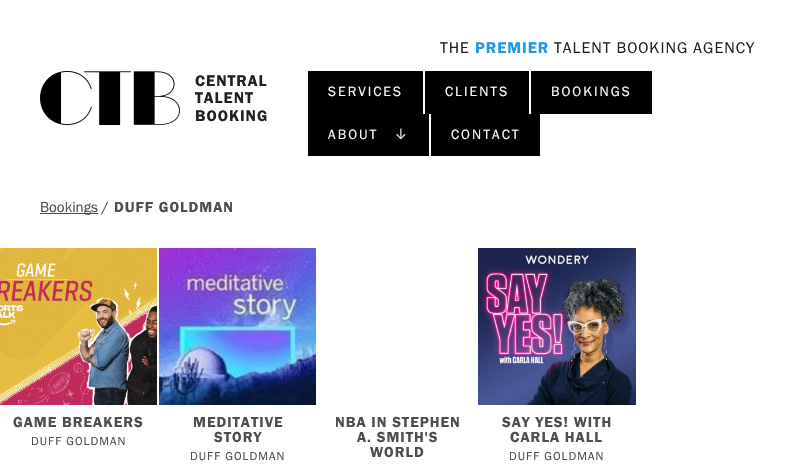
#include "include/core/SkBlurTypes.h"
#include "include/core/SkCanvas.h"
#include "include/core/SkData.h"
#include "include/core/SkFont.h"
#include "include/core/SkFontMgr.h"
#include "include/core/SkImage.h"
#include "include/core/SkMaskFilter.h"
#include "include/core/SkPaint.h"
#include "include/core/SkPathBuilder.h"
#include "include/core/SkTextBlob.h"
#include "include/effects/SkDashPathEffect.h"
#include "include/effects/SkGradientShader.h"
#include "include/utils/SkParsePath.h"

extern sk_sp<SkFontMgr> fontMgr;

static SkFont font(const char* family, int weight, float size, bool italic = false) {
    SkFontStyle style(weight, SkFontStyle::kNormal_Width,
        italic ? SkFontStyle::kItalic_Slant : SkFontStyle::kUpright_Slant);
    SkFont result(fontMgr->matchFamilyStyle(family, style), size);
    result.setSubpixel(true);
    return result;
}

static void drawLabel(SkCanvas* canvas, const char* s, float x, float y, const SkFont& font, SkColor color) {
    SkPaint ink(SkColor4f::FromColor(color));
    ink.setAntiAlias(true);
    canvas->drawString(s, x, y, font, ink);
}

static void drawTracked(SkCanvas* canvas, const char* s, float x, float y, const SkFont& font, const SkPaint& ink, float letter, float word) {
    std::vector<SkGlyphID> glyphs(font.countText(s, strlen(s), SkTextEncoding::kUTF8));
    std::vector<float> xs(glyphs.size());
    font.textToGlyphs(s, strlen(s), SkTextEncoding::kUTF8, glyphs);
    font.getXPos(glyphs, xs, x);
    float extra = 0;
    for (size_t i = 0; i < glyphs.size(); i++) {
        xs[i] += extra;
        extra += letter + word * (glyphs[i] == font.unicharToGlyph(' '));
    }
    canvas->drawTextBlob(SkTextBlob::MakeFromPosHGlyphs(glyphs, xs, y, font), 0, 0, ink);
}

static void fillRect(SkCanvas* canvas, float x, float y, float w, float h, SkColor color) {
    SkPaint ink(SkColor4f::FromColor(color));
    ink.setAntiAlias(true);
    canvas->drawRect(SkRect::MakeXYWH(x, y, w, h), ink);
}

static void drawPhoto(SkCanvas* canvas, const char* path, float x, float y, float w, float h) {
    auto image = SkImages::DeferredFromEncodedData(SkData::MakeFromFileName(path));
    canvas->drawImageRect(image, SkRect::MakeXYWH(x, y, w, h), SkSamplingOptions());
}

void draw(SkCanvas* canvas) {
    SkPaint paint;
    paint.setAntiAlias(true);
    canvas->clear(0xFFFFFFFF);
    drawPhoto(canvas, "assets/img1.png", 40, 71, 140, 54);
    SkFont font1 = font("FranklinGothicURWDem", 400, 16);
    paint.setColor(0xFF231F20);
    drawTracked(canvas, "CENTRAL", 195, 86, font1, paint, 1, 0);
    drawTracked(canvas, "TALENT", 195, 103, font1, paint, 1, 0);
    drawTracked(canvas, "BOOKING", 195, 121, font1, paint, 1, 0);
    SkFont font2 = font("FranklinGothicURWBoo", 400, 16);
    drawTracked(canvas, "THE", 440, 53, font2, paint, 1, 0);
    paint.setColor(0xFF1B99E2);
    drawTracked(canvas, "PREMIER", 475, 53, font1, paint, 1, 0);
    paint.setColor(0xFF231F20);
    drawTracked(canvas, "TALENT BOOKING AGENCY", 554, 53, font2, paint, 1, 0);
    fillRect(canvas, 308, 71, 115, 43, 0xFF000000);
    SkFont font3 = font("FranklinGothicURWBoo", 400, 14);
    paint.setColor(0xFFFFFFFF);
    drawTracked(canvas, "SERVICES", 328, 96, font3, paint, 2, 0);
    fillRect(canvas, 425, 71, 104, 43, 0xFF000000);
    drawTracked(canvas, "CLIENTS", 445, 96, font3, paint, 2, 0);
    fillRect(canvas, 531, 71, 121, 43, 0xFF000000);
    drawTracked(canvas, "BOOKINGS", 551, 96, font3, paint, 2, 0);
    fillRect(canvas, 308, 114, 121, 42, 0xFF000000);
    drawTracked(canvas, "ABOUT", 328, 139, font3, paint, 2, 0);
    SkFont font4 = font("Inter", 300, 14);
    drawTracked(canvas, "↓", 395, 139, font4, paint, 2, 0);
    fillRect(canvas, 431, 114, 109, 42, 0xFF000000);
    drawTracked(canvas, "CONTACT", 451, 139, font3, paint, 2, 0);
    fillRect(canvas, 40, 213, 58, 1, 0xFF4D4D4D);
    SkFont font5 = font("FranklinGothicURWBoo", 400, 15);
    drawLabel(canvas, "Bookings /", 40, 212, font5, 0xFF4D4D4D);
    SkFont font6 = font("FranklinGothicURWDem", 400, 15);
    paint.setColor(0xFF4D4D4D);
    drawTracked(canvas, "DUFF GOLDMAN", 114, 212, font6, paint, 1, 0);
    drawPhoto(canvas, "assets/img2.png", 0, 248, 157, 157);
    drawTracked(canvas, "GAME BREAKERS", 13, 427, font6, paint, 1, 0);
    SkFont font7 = font("FranklinGothicURWBoo", 400, 12);
    drawTracked(canvas, "DUFF GOLDMAN", 31, 445, font7, paint, 1, 0);
    drawPhoto(canvas, "assets/img3.png", 159, 248, 157, 157);
    drawTracked(canvas, "MEDITATIVE", 193, 427, font6, paint, 1, 0);
    drawTracked(canvas, "STORY", 214, 442, font6, paint, 1, 0);
    drawTracked(canvas, "DUFF GOLDMAN", 190, 460, font7, paint, 1, 0);
    drawTracked(canvas, "NBA IN STEPHEN", 335, 427, font6, paint, 1, 0);
    drawTracked(canvas, "A. SMITH'S", 357, 442, font6, paint, 1, 0);
    drawTracked(canvas, "WORLD", 370, 457, font6, paint, 1, 0);
    drawPhoto(canvas, "assets/img4.png", 478, 248, 158, 157);
    drawTracked(canvas, "SAY YES! WITH", 502, 427, font6, paint, 1, 0);
    drawTracked(canvas, "CARLA HALL", 510, 442, font6, paint, 1, 0);
    drawTracked(canvas, "DUFF GOLDMAN", 509, 460, font7, paint, 1, 0);
}
